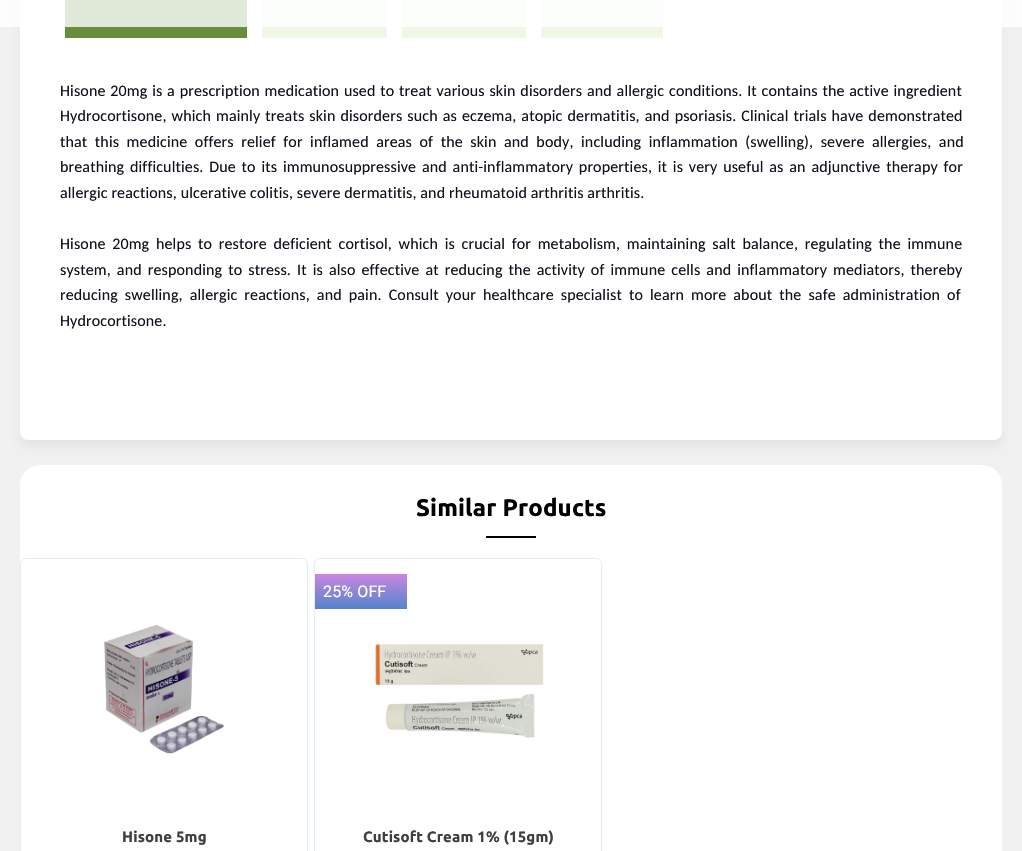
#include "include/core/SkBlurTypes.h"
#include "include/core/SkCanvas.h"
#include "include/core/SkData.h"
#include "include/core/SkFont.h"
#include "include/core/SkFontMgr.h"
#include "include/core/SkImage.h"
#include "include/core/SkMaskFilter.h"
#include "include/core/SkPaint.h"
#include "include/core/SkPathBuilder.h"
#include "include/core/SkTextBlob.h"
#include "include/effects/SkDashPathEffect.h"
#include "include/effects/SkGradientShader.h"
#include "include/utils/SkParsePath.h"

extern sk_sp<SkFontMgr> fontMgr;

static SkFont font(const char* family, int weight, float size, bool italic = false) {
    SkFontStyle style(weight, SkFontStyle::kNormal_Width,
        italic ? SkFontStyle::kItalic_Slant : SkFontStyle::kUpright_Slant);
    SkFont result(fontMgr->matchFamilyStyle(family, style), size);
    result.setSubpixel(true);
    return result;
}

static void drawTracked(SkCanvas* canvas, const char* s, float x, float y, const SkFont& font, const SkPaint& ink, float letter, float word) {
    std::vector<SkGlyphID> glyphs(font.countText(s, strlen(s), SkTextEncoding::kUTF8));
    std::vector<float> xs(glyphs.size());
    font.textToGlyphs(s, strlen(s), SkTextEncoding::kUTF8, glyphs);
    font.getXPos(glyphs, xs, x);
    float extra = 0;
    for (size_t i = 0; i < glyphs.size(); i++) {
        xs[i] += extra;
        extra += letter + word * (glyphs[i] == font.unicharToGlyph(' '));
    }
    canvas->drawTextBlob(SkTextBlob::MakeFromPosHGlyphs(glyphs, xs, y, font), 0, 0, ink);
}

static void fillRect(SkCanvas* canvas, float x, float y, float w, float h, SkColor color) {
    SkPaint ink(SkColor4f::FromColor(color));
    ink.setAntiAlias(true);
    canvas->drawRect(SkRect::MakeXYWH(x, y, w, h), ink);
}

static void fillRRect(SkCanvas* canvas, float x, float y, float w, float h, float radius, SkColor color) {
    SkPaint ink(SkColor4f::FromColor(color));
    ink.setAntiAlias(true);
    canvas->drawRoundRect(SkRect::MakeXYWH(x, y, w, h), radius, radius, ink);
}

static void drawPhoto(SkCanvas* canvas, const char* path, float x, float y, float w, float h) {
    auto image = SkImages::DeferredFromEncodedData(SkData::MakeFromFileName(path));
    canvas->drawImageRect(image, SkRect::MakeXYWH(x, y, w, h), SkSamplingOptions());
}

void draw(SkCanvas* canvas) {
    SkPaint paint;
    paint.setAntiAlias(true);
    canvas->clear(0xFFF1F1F1);
    paint.setColor(0xFFE4E4E4);
    paint.setMaskFilter(SkMaskFilter::MakeBlur(kNormal_SkBlurStyle, 5));
    canvas->drawRoundRect(SkRect::MakeXYWH(20, -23, 982, 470), 8, 8, paint);
    paint.setMaskFilter(nullptr);
    fillRRect(canvas, 20, -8, 982, 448, 8, 0xFFFFFFFF);
    fillRect(canvas, 65, 0, 182, 38, 0xFF668E3D);
    fillRect(canvas, 262, 0, 125, 38, 0xFFEFF8E7);
    fillRect(canvas, 402, 0, 124, 38, 0xFFEFF8E7);
    fillRect(canvas, 541, 0, 122, 38, 0xFFEFF8E7);
    fillRect(canvas, 0, 0, 1022, 27, 0xCCFFFFFF);
    SkFont font1 = font("Carlito", 400, 16);
    paint.setColor(0xFF0E101A);
    drawTracked(canvas, "Hisone 20mg is a prescription medication used to treat various skin disorders and allergic conditions. It contains the active ingredient", 60, 96, font1, paint, 0.14f, 1);
    drawTracked(canvas, "Hydrocortisone, which mainly treats skin disorders such as eczema, atopic dermatitis, and psoriasis. Clinical trials have demonstrated", 60, 121, font1, paint, 0.14f, 1.25f);
    drawTracked(canvas, "that this medicine offers relief for inflamed areas of the skin and body, including inflammation (swelling), severe allergies, and", 60, 147, font1, paint, 0.14f, 3.75f);
    drawTracked(canvas, "breathing difficulties. Due to its immunosuppressive and anti-inflammatory properties, it is very useful as an adjunctive therapy for", 60, 172, font1, paint, 0.14f, 2);
    drawTracked(canvas, "allergic reactions, ulcerative colitis, severe dermatitis, and rheumatoid arthritis arthritis.", 60, 198, font1, paint, 0.14f, 0);
    drawTracked(canvas, "Hisone 20mg helps to restore deficient cortisol, which is crucial for metabolism, maintaining salt balance, regulating the immune", 60, 249, font1, paint, 0.14f, 2.9f);
    drawTracked(canvas, "system, and responding to stress. It is also effective at reducing the activity of immune cells and inflammatory mediators, thereby", 60, 275, font1, paint, 0.14f, 2.25f);
    drawTracked(canvas, "reducing swelling, allergic reactions, and pain. Consult your healthcare specialist to learn more about the safe administration of", 60, 300, font1, paint, 0.14f, 3.25f);
    drawTracked(canvas, "Hydrocortisone.", 60, 326, font1, paint, 0.14f, 0);
    fillRRect(canvas, 20, 465, 982, 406, 20, 0xFFFFFFFF);
    SkFont font2 = font("Ubuntu", 700, 24);
    paint.setColor(0xFF000000);
    drawTracked(canvas, "Similar Products", 416, 516, font2, paint, 0.14f, 0);
    fillRect(canvas, 486, 536, 50, 2, 0xFF000000);
    paint.setStroke(true);
    paint.setStrokeWidth(1);
    paint.setColor(0xFFE2EEF3);
    canvas->drawRoundRect(SkRect::MakeXYWH(20.5f, 558.5f, 287, 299), 5.5f, 5.5f, paint);
    drawPhoto(canvas, "assets/img1.png", 104, 624, 120, 130);
    SkFont font3 = font("Ubuntu", 700, 15);
    paint.setStroke(false);
    paint.setColor(0xFF3F3F3F);
    drawTracked(canvas, "Hisone 5mg", 122, 842, font3, paint, 0.14f, 0);
    paint.setStroke(true);
    paint.setColor(0xFFE2EEF3);
    canvas->drawRoundRect(SkRect::MakeXYWH(314.5f, 558.5f, 287, 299), 5.5f, 5.5f, paint);
    paint.setStroke(false);
    {
        const SkColor colors[] = {0xFFCA86E1, 0xFF5484CC};
        const float stops[] = {0, 1};
        const SkPoint ends[] = {{361, 574}, {361, 609}};
        paint.setShader(SkGradientShader::MakeLinear(ends, colors, stops, 2, SkTileMode::kClamp));
        paint.setAlpha(255);
    }
    canvas->drawRect(SkRect::MakeXYWH(315, 574, 92, 35), paint);
    SkFont font4 = font("Roboto", 400, 16);
    paint.setShader(nullptr);
    paint.setColor(0xFFFFFFFF);
    drawTracked(canvas, "25% OFF", 323, 597, font4, paint, 0.14f, 0);
    drawPhoto(canvas, "assets/img2.png", 374, 643, 170, 95);
    paint.setColor(0xFF3F3F3F);
    drawTracked(canvas, "Cutisoft Cream 1% (15gm)", 363, 842, font3, paint, 0.14f, 0);
}
